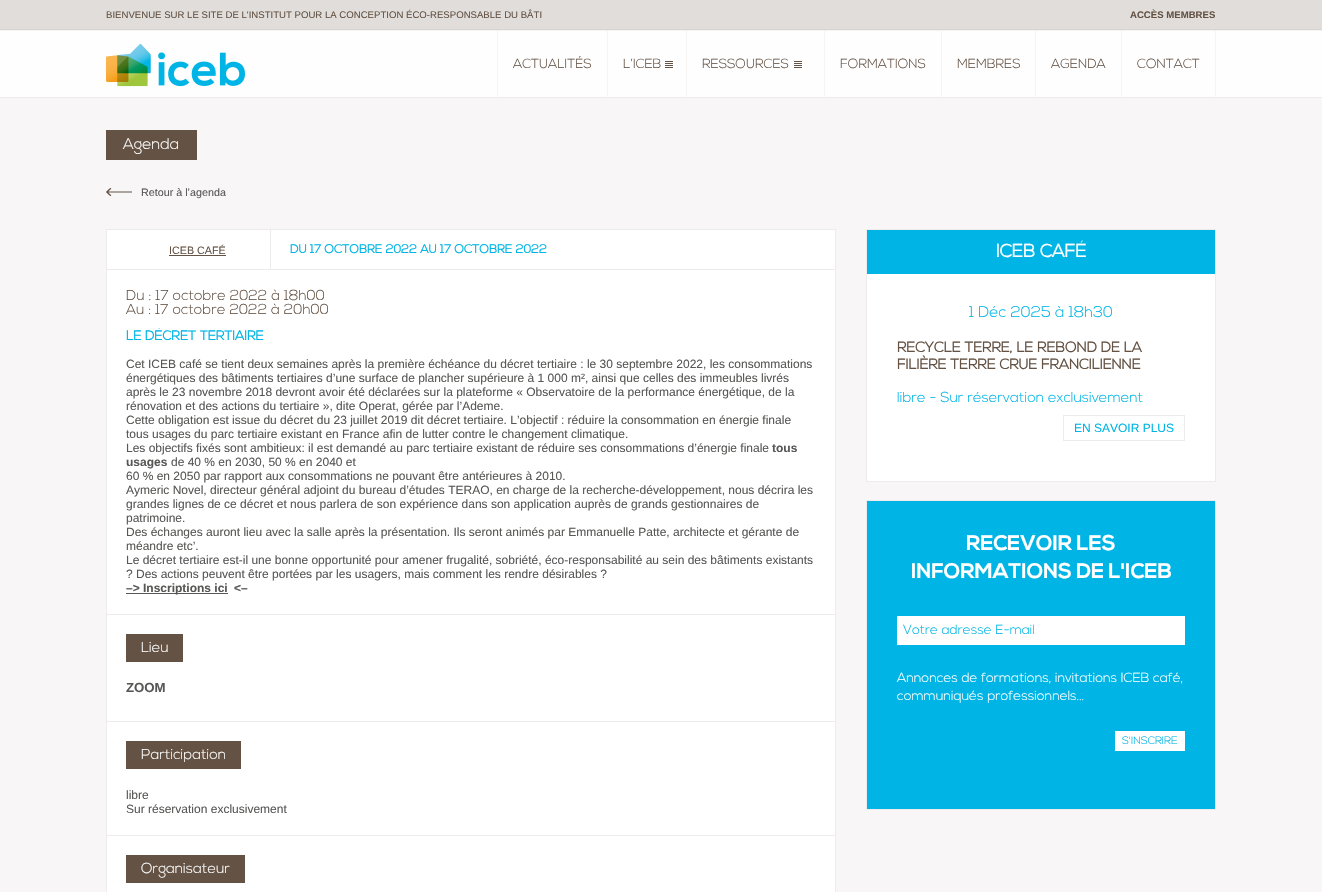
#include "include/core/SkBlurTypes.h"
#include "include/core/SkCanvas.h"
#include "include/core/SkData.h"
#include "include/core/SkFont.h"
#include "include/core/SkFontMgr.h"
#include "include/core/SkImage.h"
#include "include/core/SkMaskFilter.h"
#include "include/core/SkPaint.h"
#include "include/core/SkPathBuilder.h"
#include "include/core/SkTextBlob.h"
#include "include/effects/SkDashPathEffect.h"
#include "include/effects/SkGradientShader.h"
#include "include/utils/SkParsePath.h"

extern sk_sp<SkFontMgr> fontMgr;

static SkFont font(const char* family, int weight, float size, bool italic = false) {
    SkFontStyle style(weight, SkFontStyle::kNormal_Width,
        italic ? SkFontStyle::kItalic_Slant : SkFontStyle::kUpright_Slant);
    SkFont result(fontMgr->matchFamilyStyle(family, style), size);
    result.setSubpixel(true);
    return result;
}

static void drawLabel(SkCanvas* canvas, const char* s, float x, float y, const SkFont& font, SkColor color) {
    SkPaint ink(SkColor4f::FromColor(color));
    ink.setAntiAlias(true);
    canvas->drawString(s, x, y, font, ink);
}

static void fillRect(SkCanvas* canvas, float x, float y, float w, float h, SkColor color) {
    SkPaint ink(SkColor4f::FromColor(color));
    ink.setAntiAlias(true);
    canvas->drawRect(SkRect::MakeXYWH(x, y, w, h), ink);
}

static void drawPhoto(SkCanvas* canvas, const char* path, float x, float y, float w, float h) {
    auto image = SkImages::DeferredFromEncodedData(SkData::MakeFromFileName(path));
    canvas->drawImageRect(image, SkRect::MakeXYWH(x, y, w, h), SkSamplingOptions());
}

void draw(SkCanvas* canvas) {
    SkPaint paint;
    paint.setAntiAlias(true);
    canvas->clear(0xFFF8F6F7);
    fillRect(canvas, 0, 0, 1322, 29, 0xFFE0DDDA);
    fillRect(canvas, 0, 29, 1322, 1, 0xFFD8D4D1);
    SkFont font1 = font("Liberation Sans", 400, 9.6f);
    drawLabel(canvas, "BIENVENUE SUR LE SITE DE L'INSTITUT POUR LA CONCEPTION ÉCO-RESPONSABLE DU BÂTI", 106, 18, font1, 0xFF645345);
    SkFont font2 = font("Liberation Sans", 700, 9.6f);
    drawLabel(canvas, "ACCÈS MEMBRES", 1130, 18, font2, 0xFF645345);
    fillRect(canvas, 0, 31, 1322, 66, 0xFFFEFEFE);
    fillRect(canvas, 0, 30, 1322, 1, 0xFFF5F4F3);
    fillRect(canvas, 0, 97, 1322, 1, 0xFFEEECEB);
    drawPhoto(canvas, "assets/img1.png", 106, 43, 139, 44);
    fillRect(canvas, 497, 31, 1, 68, 0xFFF5F4F3);
    fillRect(canvas, 607, 31, 1, 68, 0xFFF5F4F3);
    SkFont font3 = font("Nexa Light", 300, 13.2f);
    drawLabel(canvas, "ACTUALITÉS", 513, 68, font3, 0xFF645345);
    drawPhoto(canvas, "assets/img2.png", 665, 61, 8, 7);
    fillRect(canvas, 686, 31, 1, 68, 0xFFF5F4F3);
    drawLabel(canvas, "L’ICEB", 623, 68, font3, 0xFF645345);
    drawPhoto(canvas, "assets/img2.png", 794, 61, 8, 7);
    fillRect(canvas, 824, 31, 1, 68, 0xFFF5F4F3);
    drawLabel(canvas, "RESSOURCES", 702, 68, font3, 0xFF645345);
    fillRect(canvas, 941, 31, 1, 68, 0xFFF5F4F3);
    drawLabel(canvas, "FORMATIONS", 840, 68, font3, 0xFF645345);
    fillRect(canvas, 1035, 31, 1, 68, 0xFFF5F4F3);
    drawLabel(canvas, "MEMBRES", 957, 68, font3, 0xFF645345);
    fillRect(canvas, 1121, 31, 1, 68, 0xFFF5F4F3);
    drawLabel(canvas, "AGENDA", 1051, 68, font3, 0xFF645345);
    fillRect(canvas, 1215, 31, 1, 68, 0xFFF5F4F3);
    drawLabel(canvas, "CONTACT", 1137, 68, font3, 0xFF645345);
    fillRect(canvas, 106, 130, 91, 30, 0xFF645345);
    SkFont font4 = font("Nexa Light", 300, 15.5f);
    drawLabel(canvas, "Agenda", 123, 149, font4, 0xFFFFFFFF);
    drawPhoto(canvas, "assets/img3.png", 106, 188, 26, 8);
    SkFont font5 = font("Liberation Sans", 400, 10.75f);
    drawLabel(canvas, "Retour à l’agenda", 141, 196, font5, 0xFF575756);
    paint.setColor(0xFFFFFFFF);
    canvas->drawRect(SkRect::MakeXYWH(106.5f, 229.5f, 729, 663), paint);
    paint.setStroke(true);
    paint.setStrokeWidth(1);
    paint.setColor(0xFFEEECEB);
    canvas->drawRect(SkRect::MakeXYWH(106.5f, 229.5f, 729, 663), paint);
    fillRect(canvas, 107, 269, 728, 1, 0xFFEEECEB);
    fillRect(canvas, 270, 230, 1, 39, 0xFFEEECEB);
    drawLabel(canvas, "ICEB CAFÉ", 169, 254, font5, 0xFF645345);
    fillRect(canvas, 169, 255, 57, 1, 0xFF645345);
    SkFont font6 = font("Nexa Light", 700, 12);
    drawLabel(canvas, "DU 17 OCTOBRE 2022 AU 17 OCTOBRE 2022", 290, 253, font6, 0xFF00B5E5);
    fillRect(canvas, 107, 614, 728, 1, 0xFFEEECEB);
    SkFont font7 = font("Nexa Light", 300, 14.4f);
    drawLabel(canvas, "Du : 17 octobre 2022 à 18h00", 126, 300, font7, 0xFF645345);
    drawLabel(canvas, "Au : 17 octobre 2022 à 20h00", 126, 314, font7, 0xFF645345);
    SkFont font8 = font("Nexa Light", 700, 13.2f);
    drawLabel(canvas, "LE DÉCRET TERTIAIRE", 126, 340, font8, 0xFF00B5E5);
    SkFont font9 = font("Liberation Sans", 400, 12);
    drawLabel(canvas, "Cet ICEB café se tient deux semaines après la première échéance du décret tertiaire : le 30 septembre 2022, les consommations", 126, 368, font9, 0xFF575756);
    drawLabel(canvas, "énergétiques des bâtiments tertiaires d’une surface de plancher supérieure à 1 000 m², ainsi que celles des immeubles livrés", 126, 382, font9, 0xFF575756);
    drawLabel(canvas, "après le 23 novembre 2018 devront avoir été déclarées sur la plateforme « Observatoire de la performance énergétique, de la", 126, 396, font9, 0xFF575756);
    drawLabel(canvas, "rénovation et des actions du tertiaire », dite Operat, gérée par l’Ademe.", 126, 410, font9, 0xFF575756);
    drawLabel(canvas, "Cette obligation est issue du décret du 23 juillet 2019 dit décret tertiaire. L’objectif : réduire la consommation en énergie finale", 126, 424, font9, 0xFF575756);
    drawLabel(canvas, "tous usages du parc tertiaire existant en France afin de lutter contre le changement climatique.", 126, 438, font9, 0xFF575756);
    drawLabel(canvas, "Les objectifs fixés sont ambitieux: il est demandé au parc tertiaire existant de réduire ses consommations d’énergie finale", 126, 452, font9, 0xFF575756);
    SkFont font10 = font("Liberation Sans", 700, 12);
    drawLabel(canvas, "tous", 772, 452, font10, 0xFF575756);
    drawLabel(canvas, "usages", 126, 466, font10, 0xFF575756);
    drawLabel(canvas, "de 40 % en 2030, 50 % en 2040 et", 171, 466, font9, 0xFF575756);
    drawLabel(canvas, "60 % en 2050 par rapport aux consommations ne pouvant être antérieures à 2010.", 126, 480, font9, 0xFF575756);
    drawLabel(canvas, "Aymeric Novel, directeur général adjoint du bureau d’études TERAO, en charge de la recherche-développement, nous décrira les", 126, 494, font9, 0xFF575756);
    drawLabel(canvas, "grandes lignes de ce décret et nous parlera de son expérience dans son application auprès de grands gestionnaires de", 126, 508, font9, 0xFF575756);
    drawLabel(canvas, "patrimoine.", 126, 522, font9, 0xFF575756);
    drawLabel(canvas, "Des échanges auront lieu avec la salle après la présentation. Ils seront animés par Emmanuelle Patte, architecte et gérante de", 126, 536, font9, 0xFF575756);
    drawLabel(canvas, "méandre etc’.", 126, 550, font9, 0xFF575756);
    drawLabel(canvas, "Le décret tertiaire est-il une bonne opportunité pour amener frugalité, sobriété, éco-responsabilité au sein des bâtiments existants", 126, 564, font9, 0xFF575756);
    drawLabel(canvas, "? Des actions peuvent être portées par les usagers, mais comment les rendre désirables ?", 126, 578, font9, 0xFF575756);
    fillRect(canvas, 126, 593, 102, 1, 0xFF575756);
    drawLabel(canvas, "–> Inscriptions ici", 126, 592, font10, 0xFF575756);
    drawLabel(canvas, "<–", 234, 592, font10, 0xFF575756);
    fillRect(canvas, 107, 721, 728, 1, 0xFFEEECEB);
    fillRect(canvas, 126, 634, 57, 28, 0xFF645345);
    drawLabel(canvas, "Lieu", 141, 652, font7, 0xFFFFFFFF);
    SkFont font11 = font("Liberation Sans", 700, 13.2f);
    drawLabel(canvas, "ZOOM", 126, 692, font11, 0xFF575756);
    fillRect(canvas, 107, 835, 728, 1, 0xFFEEECEB);
    fillRect(canvas, 126, 741, 115, 28, 0xFF645345);
    drawLabel(canvas, "Participation", 141, 759, font7, 0xFFFFFFFF);
    drawLabel(canvas, "libre", 126, 799, font9, 0xFF575756);
    drawLabel(canvas, "Sur réservation exclusivement", 126, 813, font9, 0xFF575756);
    fillRect(canvas, 126, 855, 119, 28, 0xFF645345);
    drawLabel(canvas, "Organisateur", 141, 873, font7, 0xFFFFFFFF);
    canvas->drawRect(SkRect::MakeXYWH(866.5f, 229.5f, 349, 252), paint);
    fillRect(canvas, 867, 274, 348, 207, 0xFFFFFFFF);
    fillRect(canvas, 867, 230, 348, 44, 0xFF00B5E5);
    SkFont font12 = font("Nexa Light", 700, 18);
    drawLabel(canvas, "ICEB CAFÉ", 996, 257, font12, 0xFFFFFFFF);
    drawLabel(canvas, "1 Déc 2025 à 18h30", 969, 317, font4, 0xFF00B5E5);
    SkFont font13 = font("Nexa Light", 700, 14.4f);
    drawLabel(canvas, "RECYCLE TERRE, LE REBOND DE LA", 897, 352, font13, 0xFF645345);
    drawLabel(canvas, "FILIÈRE TERRE CRUE FRANCILIENNE", 897, 369, font13, 0xFF645345);
    drawLabel(canvas, "libre - Sur réservation exclusivement", 897, 402, font7, 0xFF00B5E5);
    canvas->drawRect(SkRect::MakeXYWH(1063.5f, 415.5f, 121, 25), paint);
    drawLabel(canvas, "EN SAVOIR PLUS", 1074, 432, font9, 0xFF00B5E5);
    paint.setStroke(false);
    paint.setColor(0xFF00B5E5);
    canvas->drawRect(SkRect::MakeXYWH(866.5f, 500.5f, 349, 309), paint);
    paint.setStroke(true);
    paint.setColor(0xFFEEECEB);
    canvas->drawRect(SkRect::MakeXYWH(866.5f, 500.5f, 349, 309), paint);
    SkFont font14 = font("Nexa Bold", 700, 21);
    drawLabel(canvas, "RECEVOIR LES", 966, 550, font14, 0xFFFFFFFF);
    drawLabel(canvas, "INFORMATIONS DE L'ICEB", 911, 578, font14, 0xFFFFFFFF);
    fillRect(canvas, 897, 616, 288, 29, 0xFFFFFFFF);
    drawLabel(canvas, "Votre adresse E-mail", 903, 634, font3, 0xFF00B5E5);
    drawLabel(canvas, "Annonces de formations, invitations ICEB café,", 897, 682, font3, 0xFFFFFFFF);
    drawLabel(canvas, "communiqués professionnels...", 897, 700, font3, 0xFFFFFFFF);
    fillRect(canvas, 1115, 731, 70, 20, 0xFFFFFFFF);
    SkFont font15 = font("Nexa Light", 300, 10.75f);
    drawLabel(canvas, "S'INSCRIRE", 1122, 744, font15, 0xFF00B5E5);
}
